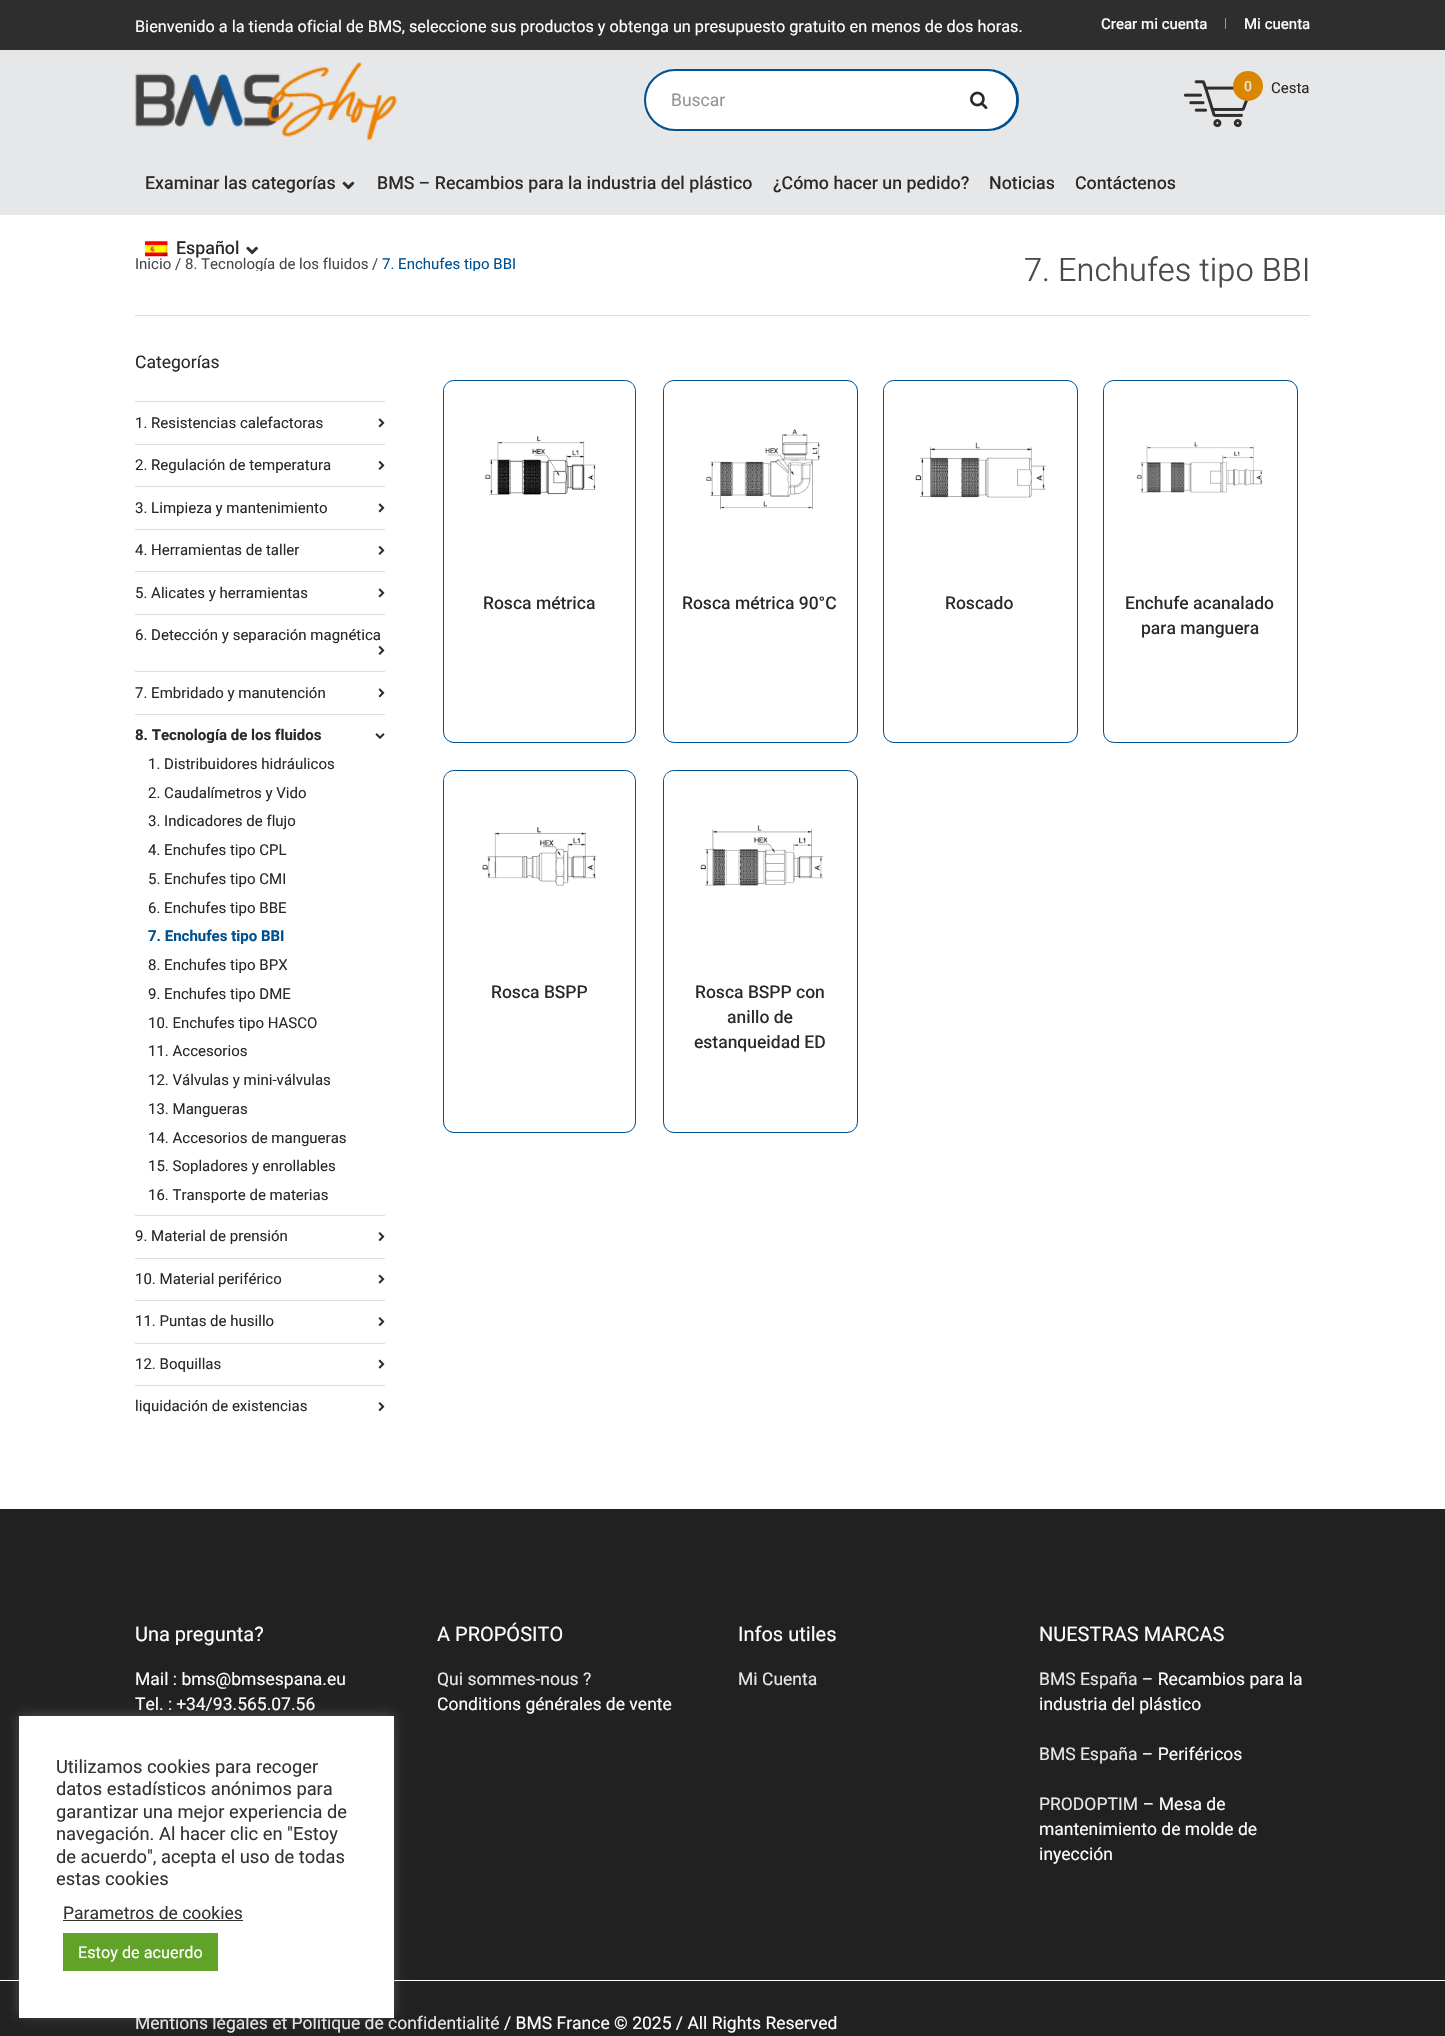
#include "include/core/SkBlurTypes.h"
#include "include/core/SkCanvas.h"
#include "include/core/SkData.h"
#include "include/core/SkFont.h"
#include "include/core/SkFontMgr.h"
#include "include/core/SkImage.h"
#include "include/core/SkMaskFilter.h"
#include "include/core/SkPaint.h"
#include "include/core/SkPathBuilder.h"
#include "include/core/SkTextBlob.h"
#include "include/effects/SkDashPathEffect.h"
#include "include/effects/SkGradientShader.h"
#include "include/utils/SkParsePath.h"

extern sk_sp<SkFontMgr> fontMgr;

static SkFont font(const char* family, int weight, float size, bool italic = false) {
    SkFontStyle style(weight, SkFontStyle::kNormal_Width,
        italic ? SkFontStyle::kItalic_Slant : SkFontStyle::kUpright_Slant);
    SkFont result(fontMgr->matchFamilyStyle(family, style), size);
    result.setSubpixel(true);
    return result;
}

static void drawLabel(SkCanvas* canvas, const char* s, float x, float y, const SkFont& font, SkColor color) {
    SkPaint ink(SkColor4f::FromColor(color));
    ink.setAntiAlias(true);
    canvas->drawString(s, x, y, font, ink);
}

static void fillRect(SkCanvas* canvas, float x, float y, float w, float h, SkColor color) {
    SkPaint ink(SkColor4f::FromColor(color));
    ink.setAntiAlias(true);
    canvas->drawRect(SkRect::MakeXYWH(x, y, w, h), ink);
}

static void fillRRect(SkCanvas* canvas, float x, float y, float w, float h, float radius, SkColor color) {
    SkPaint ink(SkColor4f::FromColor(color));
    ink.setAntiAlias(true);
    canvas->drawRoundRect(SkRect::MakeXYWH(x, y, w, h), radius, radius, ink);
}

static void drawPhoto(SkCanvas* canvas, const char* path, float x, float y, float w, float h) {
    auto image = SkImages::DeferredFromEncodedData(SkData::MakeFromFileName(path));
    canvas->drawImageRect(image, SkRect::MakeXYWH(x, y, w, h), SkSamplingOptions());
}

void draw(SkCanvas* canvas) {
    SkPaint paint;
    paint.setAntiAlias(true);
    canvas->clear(0xFFFFFFFF);
    fillRect(canvas, 0, 0, 1445, 50, 0xFF2E2E2E);
    SkFont font1 = font("Heebo", 400, 16.25f);
    drawLabel(canvas, "Bienvenido a la tienda oficial de BMS, seleccione sus productos y obtenga un presupuesto gratuito en menos de dos horas.", 135, 32, font1, 0xFFFFFFFF);
    SkFont font2 = font("Heebo", 500, 15);
    drawLabel(canvas, "Crear mi cuenta", 1101, 29, font2, 0xFFFFFFFF);
    fillRect(canvas, 1225, 18, 1, 11, 0xFF979797);
    drawLabel(canvas, "Mi cuenta", 1244, 29, font2, 0xFFFFFFFF);
    fillRect(canvas, 0, 50, 1445, 165, 0xFFE6E7E8);
    drawPhoto(canvas, "assets/img1.png", 135, 62, 262, 79);
    drawPhoto(canvas, "assets/img2.png", 1183, 80, 66, 48);
    paint.setColor(0xFFDB8600);
    canvas->drawCircle(1248, 86, 15, paint);
    SkFont font3 = font("Heebo", 500, 14);
    drawLabel(canvas, "0", 1244, 91, font3, 0xFFE6E7E8);
    SkFont font4 = font("Heebo", 400, 15);
    drawLabel(canvas, "Cesta", 1271, 93, font4, 0xFF29292A);
    paint.setStroke(true);
    paint.setStrokeWidth(3);
    paint.setColor(0xFF005191);
    canvas->drawRoundRect(SkRect::MakeXYWH(645.5f, 70.5f, 372, 59), 29.5f, 29.5f, paint);
    fillRRect(canvas, 646, 71, 370, 58, 29, 0xFFFFFFFF);
    SkFont font5 = font("Heebo", 400, 17.5f);
    drawLabel(canvas, "Buscar", 671, 106, font5, 0xFF949495);
    drawPhoto(canvas, "assets/img3.png", 970, 91, 18, 18);
    SkFont font6 = font("Heebo", 500, 17.8f);
    drawLabel(canvas, "Examinar las categorías", 145, 189, font6, 0xFF29292A);
    drawPhoto(canvas, "assets/img4.png", 342, 181, 13, 9);
    drawLabel(canvas, "BMS – Recambios para la industria del plástico", 377, 189, font6, 0xFF29292A);
    drawLabel(canvas, "¿Cómo hacer un pedido?", 773, 189, font6, 0xFF29292A);
    drawLabel(canvas, "Noticias", 989, 189, font6, 0xFF29292A);
    drawLabel(canvas, "Contáctenos", 1075, 189, font6, 0xFF29292A);
    drawPhoto(canvas, "assets/img5.png", 145, 241, 23, 16);
    drawLabel(canvas, "Español", 176, 254, font6, 0xFF29292A);
    drawPhoto(canvas, "assets/img6.png", 246, 246, 12, 9);
    fillRect(canvas, 135, 315, 1175, 1, 0xFFDDDDDD);
    drawLabel(canvas, "Inicio /", 135, 269, font4, 0xFF4A4A4D);
    canvas->save();
    canvas->clipRect(SkRect::MakeXYWH(135, 240, 381, 31));
    drawLabel(canvas, "8. Tecnología de los fluidos", 185, 269, font4, 0xFF4A4A4D);
    canvas->restore();
    drawLabel(canvas, "/", 372, 269, font4, 0xFF4A4A4D);
    canvas->save();
    canvas->clipRect(SkRect::MakeXYWH(135, 240, 381, 31));
    drawLabel(canvas, "7. Enchufes tipo BBI", 382, 269, font4, 0xFF005191);
    canvas->restore();
    SkFont font7 = font("Heebo", 300, 32.5f);
    drawLabel(canvas, "7. Enchufes tipo BBI", 1024, 281, font7, 0xFF4A4A4D);
    drawLabel(canvas, "Categorías", 135, 368, font5, 0xFF29292A);
    fillRect(canvas, 135, 401, 250, 1, 0xFFDDDDDD);
    drawLabel(canvas, "1. Resistencias calefactoras", 135, 428, font4, 0xFF29292A);
    drawPhoto(canvas, "assets/img7.png", 378, 418, 7, 10);
    fillRect(canvas, 135, 444, 250, 1, 0xFFDDDDDD);
    drawLabel(canvas, "2. Regulación de temperatura", 135, 470, font4, 0xFF29292A);
    drawPhoto(canvas, "assets/img8.png", 378, 460, 7, 10);
    fillRect(canvas, 135, 486, 250, 1, 0xFFDDDDDD);
    drawLabel(canvas, "3. Limpieza y mantenimiento", 135, 513, font4, 0xFF29292A);
    drawPhoto(canvas, "assets/img7.png", 378, 503, 7, 10);
    fillRect(canvas, 135, 529, 250, 1, 0xFFDDDDDD);
    drawLabel(canvas, "4. Herramientas de taller", 135, 555, font4, 0xFF29292A);
    drawPhoto(canvas, "assets/img8.png", 378, 545, 7, 10);
    fillRect(canvas, 135, 571, 250, 1, 0xFFDDDDDD);
    drawLabel(canvas, "5. Alicates y herramientas", 135, 598, font4, 0xFF29292A);
    drawPhoto(canvas, "assets/img7.png", 378, 588, 7, 10);
    fillRect(canvas, 135, 614, 250, 1, 0xFFDDDDDD);
    drawLabel(canvas, "6. Detección y separación magnética", 135, 640, font4, 0xFF29292A);
    drawPhoto(canvas, "assets/img8.png", 378, 645, 7, 10);
    fillRect(canvas, 135, 671, 250, 1, 0xFFDDDDDD);
    drawLabel(canvas, "7. Embridado y manutención", 135, 698, font4, 0xFF29292A);
    drawPhoto(canvas, "assets/img7.png", 378, 688, 7, 10);
    fillRect(canvas, 135, 714, 250, 1, 0xFFDDDDDD);
    SkFont font8 = font("Heebo", 700, 15);
    drawLabel(canvas, "8. Tecnología de los fluidos", 135, 740, font8, 0xFF29292A);
    drawPhoto(canvas, "assets/img9.png", 375, 733, 10, 6);
    drawLabel(canvas, "1. Distribuidores hidráulicos", 148, 769, font4, 0xFF29292A);
    drawLabel(canvas, "2. Caudalímetros y Vido", 148, 798, font4, 0xFF29292A);
    drawLabel(canvas, "3. Indicadores de flujo", 148, 826, font4, 0xFF29292A);
    drawLabel(canvas, "4. Enchufes tipo CPL", 148, 855, font4, 0xFF29292A);
    drawLabel(canvas, "5. Enchufes tipo CMI", 148, 884, font4, 0xFF29292A);
    drawLabel(canvas, "6. Enchufes tipo BBE", 148, 913, font4, 0xFF29292A);
    drawLabel(canvas, "7. Enchufes tipo BBI", 148, 941, font8, 0xFF005191);
    drawLabel(canvas, "8. Enchufes tipo BPX", 148, 970, font4, 0xFF29292A);
    drawLabel(canvas, "9. Enchufes tipo DME", 148, 999, font4, 0xFF29292A);
    drawLabel(canvas, "10. Enchufes tipo HASCO", 148, 1028, font4, 0xFF29292A);
    drawLabel(canvas, "11. Accesorios", 148, 1056, font4, 0xFF29292A);
    drawLabel(canvas, "12. Válvulas y mini-válvulas", 148, 1085, font4, 0xFF29292A);
    drawLabel(canvas, "13. Mangueras", 148, 1114, font4, 0xFF29292A);
    drawLabel(canvas, "14. Accesorios de mangueras", 148, 1143, font4, 0xFF29292A);
    drawLabel(canvas, "15. Sopladores y enrollables", 148, 1171, font4, 0xFF29292A);
    drawLabel(canvas, "16. Transporte de materias", 148, 1200, font4, 0xFF29292A);
    fillRect(canvas, 135, 1215, 250, 1, 0xFFDDDDDD);
    drawLabel(canvas, "9. Material de prensión", 135, 1241, font4, 0xFF29292A);
    drawPhoto(canvas, "assets/img10.png", 378, 1232, 7, 10);
    fillRect(canvas, 135, 1258, 250, 1, 0xFFDDDDDD);
    drawLabel(canvas, "10. Material periférico", 135, 1284, font4, 0xFF29292A);
    drawPhoto(canvas, "assets/img11.png", 378, 1274, 7, 10);
    fillRect(canvas, 135, 1300, 250, 1, 0xFFDDDDDD);
    drawLabel(canvas, "11. Puntas de husillo", 135, 1326, font4, 0xFF29292A);
    drawPhoto(canvas, "assets/img10.png", 378, 1317, 7, 10);
    fillRect(canvas, 135, 1343, 250, 1, 0xFFDDDDDD);
    drawLabel(canvas, "12. Boquillas", 135, 1369, font4, 0xFF29292A);
    drawPhoto(canvas, "assets/img11.png", 378, 1359, 7, 10);
    fillRect(canvas, 135, 1385, 250, 1, 0xFFDDDDDD);
    drawLabel(canvas, "liquidación de existencias", 135, 1411, font4, 0xFF29292A);
    drawPhoto(canvas, "assets/img10.png", 378, 1402, 7, 10);
    paint.setStrokeWidth(1);
    paint.setColor(0xFFDDDDDD);
    canvas->drawRoundRect(SkRect::MakeXYWH(443.5f, 380.5f, 192, 362), 10.5f, 10.5f, paint);
    paint.setStroke(false);
    paint.setColor(0xFFFFFFFF);
    canvas->drawRoundRect(SkRect::MakeXYWH(443.5f, 380.5f, 192, 362), 10.5f, 10.5f, paint);
    paint.setStroke(true);
    paint.setColor(0xFF005191);
    canvas->drawRoundRect(SkRect::MakeXYWH(443.5f, 380.5f, 192, 362), 10.5f, 10.5f, paint);
    drawPhoto(canvas, "assets/img12.png", 444, 381, 191, 114);
    SkFont font9 = font("Heebo", 500, 17.5f);
    drawLabel(canvas, "Rosca métrica", 483, 609, font9, 0xFF29292A);
    paint.setColor(0xFFDDDDDD);
    canvas->drawRoundRect(SkRect::MakeXYWH(663.5f, 380.5f, 194, 362), 10.5f, 10.5f, paint);
    paint.setStroke(false);
    paint.setColor(0xFFFFFFFF);
    canvas->drawRoundRect(SkRect::MakeXYWH(663.5f, 380.5f, 194, 362), 10.5f, 10.5f, paint);
    paint.setStroke(true);
    paint.setColor(0xFF005191);
    canvas->drawRoundRect(SkRect::MakeXYWH(663.5f, 380.5f, 194, 362), 10.5f, 10.5f, paint);
    drawPhoto(canvas, "assets/img13.png", 664, 381, 191, 129);
    drawLabel(canvas, "Rosca métrica 90°C", 682, 609, font9, 0xFF29292A);
    paint.setColor(0xFFDDDDDD);
    canvas->drawRoundRect(SkRect::MakeXYWH(883.5f, 380.5f, 194, 362), 10.5f, 10.5f, paint);
    paint.setStroke(false);
    paint.setColor(0xFFFFFFFF);
    canvas->drawRoundRect(SkRect::MakeXYWH(883.5f, 380.5f, 194, 362), 10.5f, 10.5f, paint);
    paint.setStroke(true);
    paint.setColor(0xFF005191);
    canvas->drawRoundRect(SkRect::MakeXYWH(883.5f, 380.5f, 194, 362), 10.5f, 10.5f, paint);
    drawPhoto(canvas, "assets/img14.png", 884, 381, 191, 117);
    drawLabel(canvas, "Roscado", 945, 609, font9, 0xFF29292A);
    paint.setColor(0xFFDDDDDD);
    canvas->drawRoundRect(SkRect::MakeXYWH(1103.5f, 380.5f, 194, 362), 10.5f, 10.5f, paint);
    paint.setStroke(false);
    paint.setColor(0xFFFFFFFF);
    canvas->drawRoundRect(SkRect::MakeXYWH(1103.5f, 380.5f, 194, 362), 10.5f, 10.5f, paint);
    paint.setStroke(true);
    paint.setColor(0xFF005191);
    canvas->drawRoundRect(SkRect::MakeXYWH(1103.5f, 380.5f, 194, 362), 10.5f, 10.5f, paint);
    drawPhoto(canvas, "assets/img15.png", 1104, 381, 191, 112);
    drawLabel(canvas, "Enchufe acanalado", 1125, 609, font9, 0xFF29292A);
    drawLabel(canvas, "para manguera", 1141, 634, font9, 0xFF29292A);
    paint.setColor(0xFFDDDDDD);
    canvas->drawRoundRect(SkRect::MakeXYWH(443.5f, 770.5f, 192, 362), 10.5f, 10.5f, paint);
    paint.setStroke(false);
    paint.setColor(0xFFFFFFFF);
    canvas->drawRoundRect(SkRect::MakeXYWH(443.5f, 770.5f, 192, 362), 10.5f, 10.5f, paint);
    paint.setStroke(true);
    paint.setColor(0xFF005191);
    canvas->drawRoundRect(SkRect::MakeXYWH(443.5f, 770.5f, 192, 362), 10.5f, 10.5f, paint);
    drawPhoto(canvas, "assets/img16.png", 444, 771, 191, 115);
    drawLabel(canvas, "Rosca BSPP", 491, 998, font9, 0xFF29292A);
    paint.setColor(0xFFDDDDDD);
    canvas->drawRoundRect(SkRect::MakeXYWH(663.5f, 770.5f, 194, 362), 10.5f, 10.5f, paint);
    paint.setStroke(false);
    paint.setColor(0xFFFFFFFF);
    canvas->drawRoundRect(SkRect::MakeXYWH(663.5f, 770.5f, 194, 362), 10.5f, 10.5f, paint);
    paint.setStroke(true);
    paint.setColor(0xFF005191);
    canvas->drawRoundRect(SkRect::MakeXYWH(663.5f, 770.5f, 194, 362), 10.5f, 10.5f, paint);
    drawPhoto(canvas, "assets/img17.png", 664, 771, 191, 115);
    drawLabel(canvas, "Rosca BSPP con", 695, 998, font9, 0xFF29292A);
    drawLabel(canvas, "anillo de", 727, 1023, font9, 0xFF29292A);
    drawLabel(canvas, "estanqueidad ED", 694, 1048, font9, 0xFF29292A);
    fillRect(canvas, 0, 1509, 1445, 471, 0xFF212121);
    SkFont font10 = font("Heebo", 400, 20);
    drawLabel(canvas, "Una pregunta?", 135, 1641, font10, 0xFFFFFFFF);
    drawLabel(canvas, "Mail : bms@bmsespana.eu", 135, 1685, font5, 0xFFFFFFFF);
    drawLabel(canvas, "Tel. : +34/93.565.07.56", 135, 1710, font5, 0xFFFFFFFF);
    drawLabel(canvas, "A PROPÓSITO", 437, 1641, font10, 0xFFFFFFFF);
    drawLabel(canvas, "Qui sommes-nous ?", 437, 1685, font5, 0xFFE6E7E8);
    drawLabel(canvas, "Conditions générales de vente", 437, 1710, font5, 0xFFFFFFFF);
    drawLabel(canvas, "Infos utiles", 738, 1641, font10, 0xFFFFFFFF);
    drawLabel(canvas, "Mi Cuenta", 738, 1685, font5, 0xFFE6E7E8);
    drawLabel(canvas, "NUESTRAS MARCAS", 1039, 1641, font10, 0xFFFFFFFF);
    drawLabel(canvas, "BMS España", 1039, 1685, font5, 0xFFE6E7E8);
    drawLabel(canvas, "– Recambios para la", 1142, 1685, font5, 0xFFFFFFFF);
    drawLabel(canvas, "industria del plástico", 1039, 1710, font5, 0xFFFFFFFF);
    drawLabel(canvas, "BMS España", 1039, 1760, font5, 0xFFE6E7E8);
    drawLabel(canvas, "– Periféricos", 1142, 1760, font5, 0xFFFFFFFF);
    drawLabel(canvas, "PRODOPTIM", 1039, 1810, font5, 0xFFE6E7E8);
    drawLabel(canvas, "– Mesa de", 1143, 1810, font5, 0xFFFFFFFF);
    drawLabel(canvas, "mantenimiento de molde de", 1039, 1835, font5, 0xFFFFFFFF);
    drawLabel(canvas, "inyección", 1039, 1860, font5, 0xFFFFFFFF);
    fillRect(canvas, 0, 1981, 1445, 55, 0xFF212121);
    drawLabel(canvas, "Mentions légales et Politique de confidentialité", 135, 2029, font5, 0xFFE6E7E8);
    drawLabel(canvas, "/ BMS France © 2025 / All Rights Reserved", 504, 2029, font5, 0xFFFFFFFF);
    paint.setStroke(false);
    paint.setColor(0x4DACABAB);
    paint.setMaskFilter(SkMaskFilter::MakeBlur(kNormal_SkBlurStyle, 6));
    canvas->drawRect(SkRect::MakeXYWH(19, 1715, 375, 301), paint);
    paint.setMaskFilter(nullptr);
    fillRect(canvas, 19, 1716, 375, 302, 0xFFFFFFFF);
    SkFont font11 = font("Heebo", 400, 18.3f);
    drawLabel(canvas, "Utilizamos cookies para recoger", 56, 1773, font11, 0xFF333333);
    drawLabel(canvas, "datos estadísticos anónimos para", 56, 1795, font11, 0xFF333333);
    drawLabel(canvas, "garantizar una mejor experiencia de", 56, 1818, font11, 0xFF333333);
    drawLabel(canvas, "navegación. Al hacer clic en \"Estoy", 56, 1840, font11, 0xFF333333);
    drawLabel(canvas, "de acuerdo\", acepta el uso de todas", 56, 1863, font11, 0xFF333333);
    drawLabel(canvas, "estas cookies", 56, 1885, font11, 0xFF333333);
    drawLabel(canvas, "Parametros de cookies", 63, 1919, font5, 0xFF333333);
    fillRect(canvas, 63, 1920, 180, 1, 0xFF333333);
    fillRect(canvas, 63, 1933, 155, 38, 0xFF61A229);
    drawLabel(canvas, "Estoy de acuerdo", 78, 1958, font1, 0xFFFFFFFF);
}
